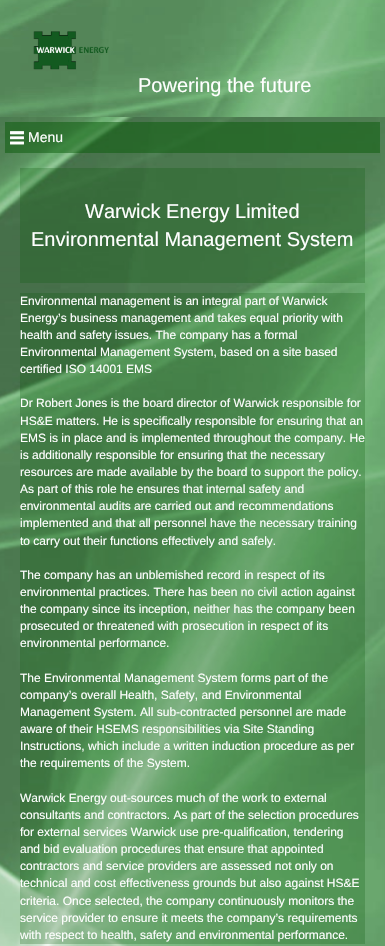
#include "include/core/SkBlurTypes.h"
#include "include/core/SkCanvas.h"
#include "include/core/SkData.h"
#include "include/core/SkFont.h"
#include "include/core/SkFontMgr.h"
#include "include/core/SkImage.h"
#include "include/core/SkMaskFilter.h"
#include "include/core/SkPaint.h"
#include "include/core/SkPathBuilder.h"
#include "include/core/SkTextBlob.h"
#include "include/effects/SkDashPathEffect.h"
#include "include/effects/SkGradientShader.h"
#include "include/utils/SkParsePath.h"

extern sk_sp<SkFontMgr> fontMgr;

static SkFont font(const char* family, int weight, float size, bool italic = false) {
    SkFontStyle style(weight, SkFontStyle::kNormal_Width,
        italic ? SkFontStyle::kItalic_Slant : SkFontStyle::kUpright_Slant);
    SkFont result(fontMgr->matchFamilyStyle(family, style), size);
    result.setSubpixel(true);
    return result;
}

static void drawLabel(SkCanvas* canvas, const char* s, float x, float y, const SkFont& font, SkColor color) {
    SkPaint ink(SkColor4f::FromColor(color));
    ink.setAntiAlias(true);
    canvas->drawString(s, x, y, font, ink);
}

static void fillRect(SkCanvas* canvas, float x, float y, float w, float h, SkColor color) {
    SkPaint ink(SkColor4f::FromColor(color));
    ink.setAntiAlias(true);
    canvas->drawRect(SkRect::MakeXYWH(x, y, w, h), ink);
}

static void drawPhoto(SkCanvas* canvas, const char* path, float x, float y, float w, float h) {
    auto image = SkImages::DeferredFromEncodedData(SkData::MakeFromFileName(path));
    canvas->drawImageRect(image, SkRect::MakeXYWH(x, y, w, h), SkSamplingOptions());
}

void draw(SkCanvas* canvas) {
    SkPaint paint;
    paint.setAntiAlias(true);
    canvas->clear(0xFFFFFFFF);
    drawPhoto(canvas, "assets/img1.png", 0, 117, 385, 829);
    drawPhoto(canvas, "assets/img2.png", 0, 0, 385, 117);
    drawPhoto(canvas, "assets/img3.png", 33, 31, 76, 39);
    SkFont font1 = font("Liberation Sans", 400, 20);
    drawLabel(canvas, "Powering the future", 138, 92, font1, 0xFFFFFFFF);
    fillRect(canvas, 5, 122, 375, 31, 0x80085908);
    drawPhoto(canvas, "assets/img4.png", 10, 131, 14, 14);
    SkFont font2 = font("Liberation Sans", 400, 14);
    drawLabel(canvas, "Menu", 28, 142, font2, 0xFFFFFFFF);
    fillRect(canvas, 20, 168, 345, 115, 0x40085908);
    drawLabel(canvas, "Warwick Energy Limited", 85, 218, font1, 0xFFFFFFFF);
    drawLabel(canvas, "Environmental Management System", 31, 246, font1, 0xFFFFFFFF);
    fillRect(canvas, 20, 293, 345, 651, 0x40085908);
    SkFont font3 = font("Liberation Sans", 400, 12);
    drawLabel(canvas, "Environmental management is an integral part of Warwick", 20, 305, font3, 0xFFFFFFFF);
    drawLabel(canvas, "Energy’s business management and takes equal priority with", 20, 322, font3, 0xFFFFFFFF);
    drawLabel(canvas, "health and safety issues. The company has a formal", 20, 339, font3, 0xFFFFFFFF);
    drawLabel(canvas, "Environmental Management System, based on a site based", 20, 356, font3, 0xFFFFFFFF);
    drawLabel(canvas, "certified ISO 14001 EMS", 20, 373, font3, 0xFFFFFFFF);
    drawLabel(canvas, "Dr Robert Jones is the board director of Warwick responsible for", 20, 407, font3, 0xFFFFFFFF);
    drawLabel(canvas, "HS&E matters. He is specifically responsible for ensuring that an", 20, 425, font3, 0xFFFFFFFF);
    drawLabel(canvas, "EMS is in place and is implemented throughout the company. He", 20, 442, font3, 0xFFFFFFFF);
    drawLabel(canvas, "is additionally responsible for ensuring that the necessary", 20, 459, font3, 0xFFFFFFFF);
    drawLabel(canvas, "resources are made available by the board to support the policy.", 20, 476, font3, 0xFFFFFFFF);
    drawLabel(canvas, "As part of this role he ensures that internal safety and", 20, 493, font3, 0xFFFFFFFF);
    drawLabel(canvas, "environmental audits are carried out and recommendations", 20, 510, font3, 0xFFFFFFFF);
    drawLabel(canvas, "implemented and that all personnel have the necessary training", 20, 527, font3, 0xFFFFFFFF);
    drawLabel(canvas, "to carry out their functions effectively and safely.", 20, 545, font3, 0xFFFFFFFF);
    drawLabel(canvas, "The company has an unblemished record in respect of its", 20, 579, font3, 0xFFFFFFFF);
    drawLabel(canvas, "environmental practices. There has been no civil action against", 20, 596, font3, 0xFFFFFFFF);
    drawLabel(canvas, "the company since its inception, neither has the company been", 20, 613, font3, 0xFFFFFFFF);
    drawLabel(canvas, "prosecuted or threatened with prosecution in respect of its", 20, 630, font3, 0xFFFFFFFF);
    drawLabel(canvas, "environmental performance.", 20, 647, font3, 0xFFFFFFFF);
    drawLabel(canvas, "The Environmental Management System forms part of the", 20, 682, font3, 0xFFFFFFFF);
    drawLabel(canvas, "company’s overall Health, Safety, and Environmental", 20, 699, font3, 0xFFFFFFFF);
    drawLabel(canvas, "Management System. All sub-contracted personnel are made", 20, 716, font3, 0xFFFFFFFF);
    drawLabel(canvas, "aware of their HSEMS responsibilities via Site Standing", 20, 733, font3, 0xFFFFFFFF);
    drawLabel(canvas, "Instructions, which include a written induction procedure as per", 20, 750, font3, 0xFFFFFFFF);
    drawLabel(canvas, "the requirements of the System.", 20, 767, font3, 0xFFFFFFFF);
    drawLabel(canvas, "Warwick Energy out-sources much of the work to external", 20, 802, font3, 0xFFFFFFFF);
    drawLabel(canvas, "consultants and contractors. As part of the selection procedures", 20, 819, font3, 0xFFFFFFFF);
    drawLabel(canvas, "for external services Warwick use pre-qualification, tendering", 20, 836, font3, 0xFFFFFFFF);
    drawLabel(canvas, "and bid evaluation procedures that ensure that appointed", 20, 853, font3, 0xFFFFFFFF);
    drawLabel(canvas, "contractors and service providers are assessed not only on", 20, 870, font3, 0xFFFFFFFF);
    drawLabel(canvas, "technical and cost effectiveness grounds but also against HS&E", 20, 887, font3, 0xFFFFFFFF);
    drawLabel(canvas, "criteria. Once selected, the company continuously monitors the", 20, 905, font3, 0xFFFFFFFF);
    drawLabel(canvas, "service provider to ensure it meets the company’s requirements", 20, 922, font3, 0xFFFFFFFF);
    drawLabel(canvas, "with respect to health, safety and environmental performance.", 20, 939, font3, 0xFFFFFFFF);
}
